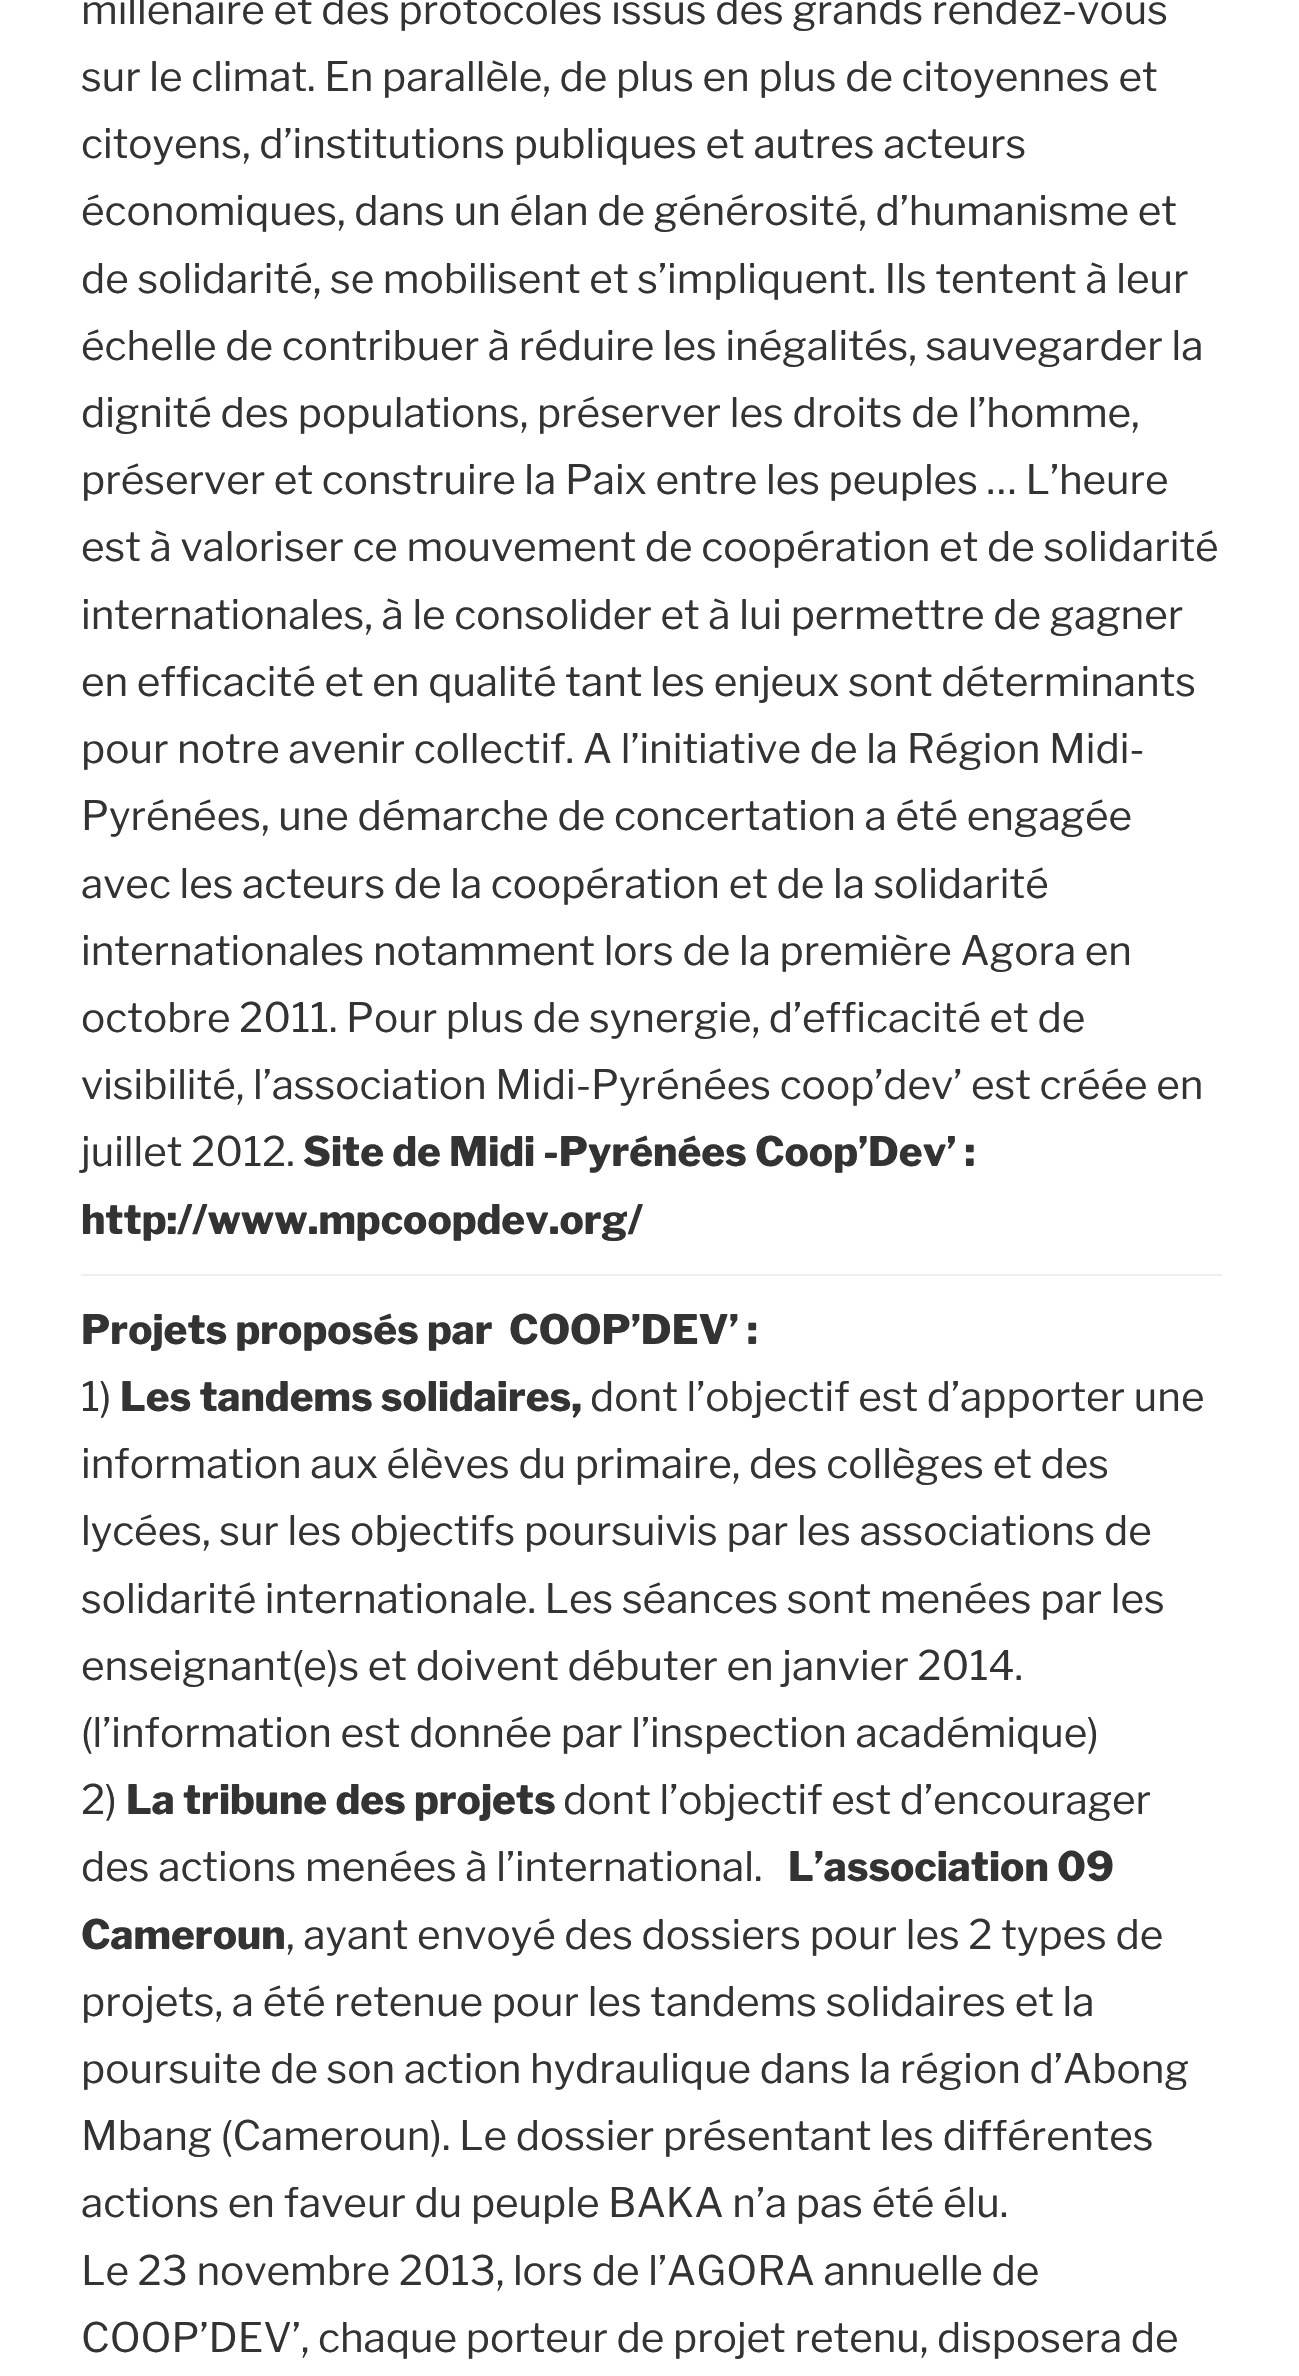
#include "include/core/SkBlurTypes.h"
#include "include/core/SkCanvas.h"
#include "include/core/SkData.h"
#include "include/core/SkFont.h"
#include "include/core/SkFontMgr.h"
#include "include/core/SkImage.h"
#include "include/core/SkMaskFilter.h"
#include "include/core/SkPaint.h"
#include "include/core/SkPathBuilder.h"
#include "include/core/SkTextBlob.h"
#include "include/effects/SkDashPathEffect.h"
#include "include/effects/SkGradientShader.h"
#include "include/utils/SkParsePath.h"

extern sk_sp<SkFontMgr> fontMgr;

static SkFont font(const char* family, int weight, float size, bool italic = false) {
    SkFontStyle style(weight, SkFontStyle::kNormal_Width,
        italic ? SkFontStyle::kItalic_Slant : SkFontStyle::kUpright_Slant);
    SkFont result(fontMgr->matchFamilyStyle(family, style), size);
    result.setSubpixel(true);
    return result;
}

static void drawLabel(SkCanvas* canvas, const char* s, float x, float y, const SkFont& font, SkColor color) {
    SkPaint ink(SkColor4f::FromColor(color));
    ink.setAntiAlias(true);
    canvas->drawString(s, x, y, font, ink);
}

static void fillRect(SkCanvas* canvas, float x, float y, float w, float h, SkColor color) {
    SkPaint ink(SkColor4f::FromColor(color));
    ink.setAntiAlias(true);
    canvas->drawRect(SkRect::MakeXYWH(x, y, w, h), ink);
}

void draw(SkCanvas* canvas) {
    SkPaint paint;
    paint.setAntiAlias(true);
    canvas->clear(0xFFFFFFFF);
    fillRect(canvas, 81, 1274, 1141, 2, 0xFFEEEEEE);
    SkFont font1 = font("Libre Franklin", 400, 40.5f);
    drawLabel(canvas, "millénaire et des protocoles issus des grands rendez-vous", 81, 24, font1, 0xFF333333);
    drawLabel(canvas, "sur le climat. En parallèle, de plus en plus de citoyennes et", 81, 91, font1, 0xFF333333);
    drawLabel(canvas, "citoyens, d’institutions publiques et autres acteurs", 81, 158, font1, 0xFF333333);
    drawLabel(canvas, "économiques, dans un élan de générosité, d’humanisme et", 81, 225, font1, 0xFF333333);
    drawLabel(canvas, "de solidarité, se mobilisent et s’impliquent. Ils tentent à leur", 81, 293, font1, 0xFF333333);
    drawLabel(canvas, "échelle de contribuer à réduire les inégalités, sauvegarder la", 81, 360, font1, 0xFF333333);
    drawLabel(canvas, "dignité des populations, préserver les droits de l’homme,", 81, 427, font1, 0xFF333333);
    drawLabel(canvas, "préserver et construire la Paix entre les peuples … L’heure", 81, 494, font1, 0xFF333333);
    drawLabel(canvas, "est à valoriser ce mouvement de coopération et de solidarité", 81, 561, font1, 0xFF333333);
    drawLabel(canvas, "internationales, à le consolider et à lui permettre de gagner", 81, 629, font1, 0xFF333333);
    drawLabel(canvas, "en efficacité et en qualité tant les enjeux sont déterminants", 81, 696, font1, 0xFF333333);
    drawLabel(canvas, "pour notre avenir collectif. A l’initiative de la Région Midi-", 81, 763, font1, 0xFF333333);
    drawLabel(canvas, "Pyrénées, une démarche de concertation a été engagée", 81, 830, font1, 0xFF333333);
    drawLabel(canvas, "avec les acteurs de la coopération et de la solidarité", 81, 898, font1, 0xFF333333);
    drawLabel(canvas, "internationales notamment lors de la première Agora en", 81, 965, font1, 0xFF333333);
    drawLabel(canvas, "octobre 2011. Pour plus de synergie, d’efficacité et de", 81, 1032, font1, 0xFF333333);
    drawLabel(canvas, "visibilité, l’association Midi-Pyrénées coop’dev’ est créée en", 81, 1099, font1, 0xFF333333);
    drawLabel(canvas, "juillet 2012.", 81, 1166, font1, 0xFF333333);
    SkFont font2 = font("Libre Franklin", 800, 40.5f);
    drawLabel(canvas, "Site de Midi -Pyrénées Coop’Dev’ :", 303, 1166, font2, 0xFF333333);
    drawLabel(canvas, "http://www.mpcoopdev.org/", 81, 1234, font2, 0xFF333333);
    drawLabel(canvas, "Projets proposés par  COOP’DEV’ :", 81, 1344, font2, 0xFF333333);
    drawLabel(canvas, "1)", 81, 1411, font1, 0xFF333333);
    drawLabel(canvas, "Les tandems solidaires,", 120, 1411, font2, 0xFF333333);
    drawLabel(canvas, "dont l’objectif est d’apporter une", 590, 1411, font1, 0xFF333333);
    drawLabel(canvas, "information aux élèves du primaire, des collèges et des", 81, 1478, font1, 0xFF333333);
    drawLabel(canvas, "lycées, sur les objectifs poursuivis par les associations de", 81, 1545, font1, 0xFF333333);
    drawLabel(canvas, "solidarité internationale. Les séances sont menées par les", 81, 1613, font1, 0xFF333333);
    drawLabel(canvas, "enseignant(e)s et doivent débuter en janvier 2014.", 81, 1680, font1, 0xFF333333);
    drawLabel(canvas, "(l’information est donnée par l’inspection académique)", 81, 1747, font1, 0xFF333333);
    drawLabel(canvas, "2)", 81, 1814, font1, 0xFF333333);
    drawLabel(canvas, "La tribune des projets", 126, 1814, font2, 0xFF333333);
    drawLabel(canvas, "dont l’objectif est d’encourager", 563, 1814, font1, 0xFF333333);
    drawLabel(canvas, "des actions menées à l’international.", 81, 1881, font1, 0xFF333333);
    drawLabel(canvas, "L’association 09", 788, 1881, font2, 0xFF333333);
    drawLabel(canvas, "Cameroun", 81, 1949, font2, 0xFF333333);
    drawLabel(canvas, ", ayant envoyé des dossiers pour les 2 types de", 286, 1949, font1, 0xFF333333);
    drawLabel(canvas, "projets, a été retenue pour les tandems solidaires et la", 81, 2016, font1, 0xFF333333);
    drawLabel(canvas, "poursuite de son action hydraulique dans la région d’Abong", 81, 2083, font1, 0xFF333333);
    drawLabel(canvas, "Mbang (Cameroun). Le dossier présentant les différentes", 81, 2150, font1, 0xFF333333);
    drawLabel(canvas, "actions en faveur du peuple BAKA n’a pas été élu.", 81, 2217, font1, 0xFF333333);
    drawLabel(canvas, "Le 23 novembre 2013, lors de l’AGORA annuelle de", 81, 2285, font1, 0xFF333333);
    drawLabel(canvas, "COOP’DEV’, chaque porteur de projet retenu, disposera de", 81, 2352, font1, 0xFF333333);
}
